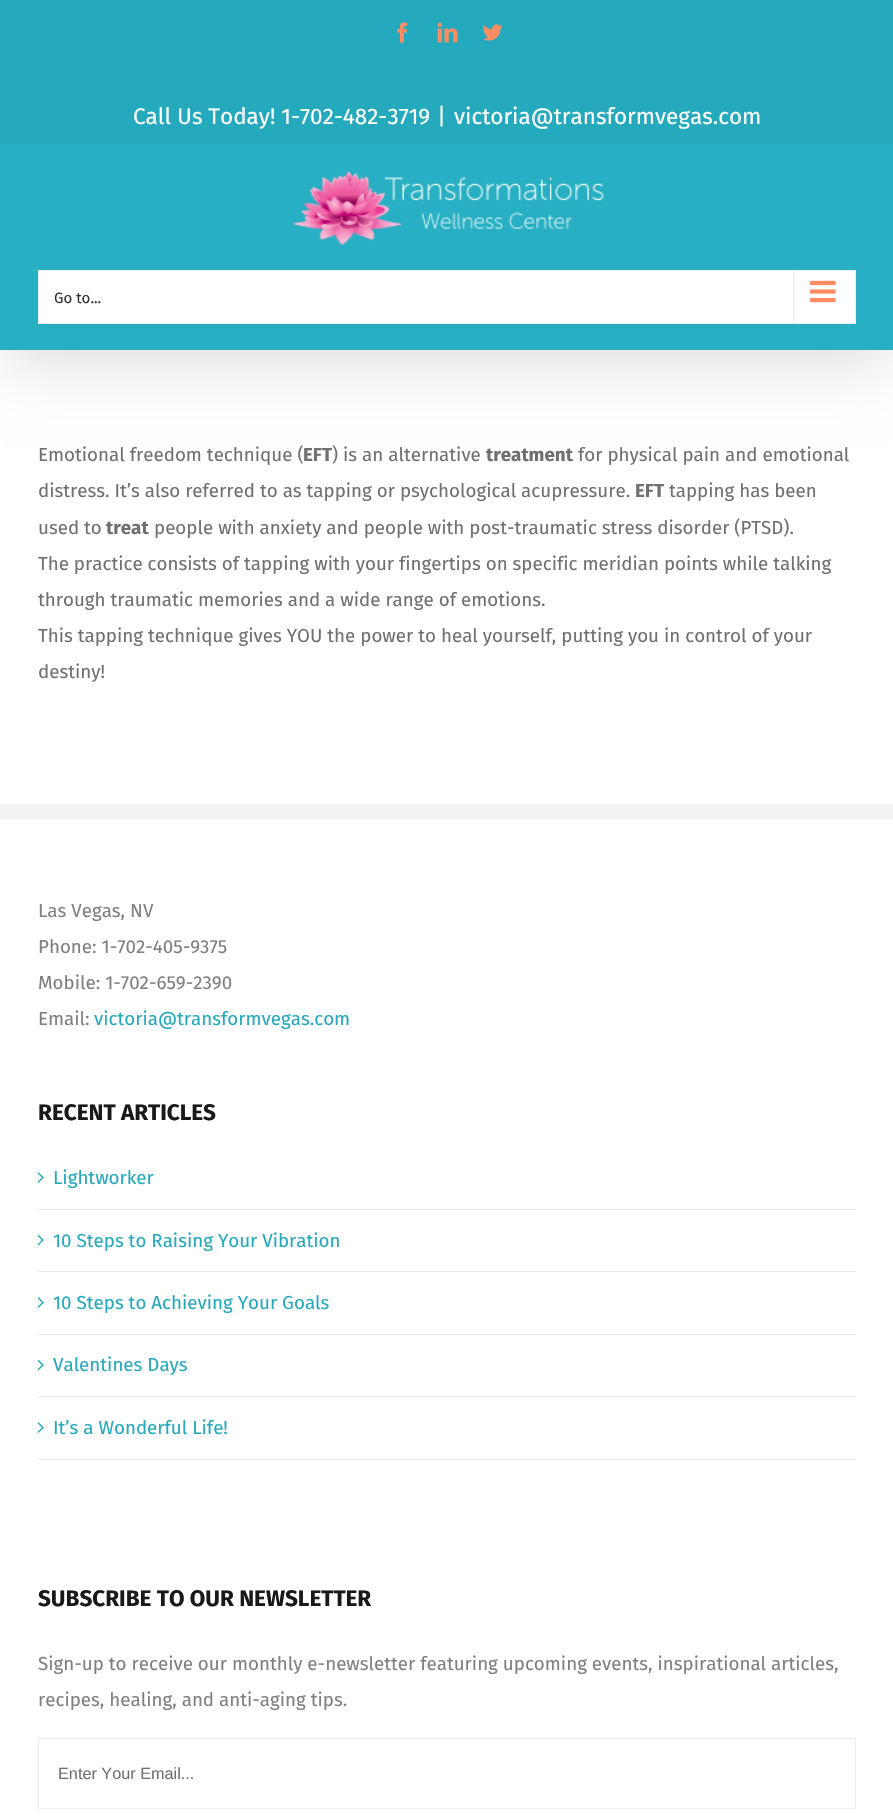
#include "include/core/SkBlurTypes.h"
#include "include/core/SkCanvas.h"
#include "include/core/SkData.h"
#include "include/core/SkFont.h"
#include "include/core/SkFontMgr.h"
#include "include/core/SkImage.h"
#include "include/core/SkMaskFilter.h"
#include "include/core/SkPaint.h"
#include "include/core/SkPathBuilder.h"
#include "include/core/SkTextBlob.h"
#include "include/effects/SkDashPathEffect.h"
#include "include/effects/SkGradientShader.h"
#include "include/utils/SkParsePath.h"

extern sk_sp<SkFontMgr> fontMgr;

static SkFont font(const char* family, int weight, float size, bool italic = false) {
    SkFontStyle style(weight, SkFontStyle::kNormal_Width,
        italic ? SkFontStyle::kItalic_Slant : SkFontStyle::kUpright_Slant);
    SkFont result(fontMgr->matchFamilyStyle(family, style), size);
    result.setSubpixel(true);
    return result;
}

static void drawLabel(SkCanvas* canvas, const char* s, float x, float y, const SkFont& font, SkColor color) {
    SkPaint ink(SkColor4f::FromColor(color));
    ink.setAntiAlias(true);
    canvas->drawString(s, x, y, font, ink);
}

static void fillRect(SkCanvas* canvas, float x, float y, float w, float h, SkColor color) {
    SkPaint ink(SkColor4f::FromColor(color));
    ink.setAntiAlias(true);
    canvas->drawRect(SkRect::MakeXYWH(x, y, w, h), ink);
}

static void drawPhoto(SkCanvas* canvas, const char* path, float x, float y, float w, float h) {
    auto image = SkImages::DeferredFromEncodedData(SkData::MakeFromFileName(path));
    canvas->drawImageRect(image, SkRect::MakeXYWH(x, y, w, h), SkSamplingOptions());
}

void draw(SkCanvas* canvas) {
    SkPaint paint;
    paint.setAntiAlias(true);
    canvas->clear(0xFFFFFFFF);
    paint.setColor(0x24000000);
    paint.setMaskFilter(SkMaskFilter::MakeBlur(kNormal_SkBlurStyle, 31));
    canvas->drawRect(SkRect::MakeXYWH(3, 15, 888, 345), paint);
    paint.setMaskFilter(nullptr);
    fillRect(canvas, 0, 0, 893, 144, 0xFF25A9BD);
    drawPhoto(canvas, "assets/img1.png", 397, 22, 10, 21);
    drawPhoto(canvas, "assets/img2.png", 437, 22, 21, 21);
    drawPhoto(canvas, "assets/img3.png", 482, 24, 21, 17);
    SkFont font1 = font("Fira Sans", 400, 22.5f);
    drawLabel(canvas, "Call Us Today! 1-702-482-3719", 133, 124, font1, 0xFFFFFFFF);
    drawLabel(canvas, "|", 437, 124, font1, 0xFFFFFFFF);
    drawLabel(canvas, "victoria@transformvegas.com", 454, 124, font1, 0xFFFFFFFF);
    fillRect(canvas, 0, 144, 893, 206, 0xFF28AFC3);
    drawPhoto(canvas, "assets/img4.png", 292, 171, 312, 74);
    paint.setColor(0xFFFFFFFF);
    canvas->drawRect(SkRect::MakeXYWH(38.5f, 270.5f, 817, 53), paint);
    paint.setStroke(true);
    paint.setStrokeWidth(1);
    paint.setColor(0xFFEEEEEE);
    canvas->drawRect(SkRect::MakeXYWH(38.5f, 270.5f, 817, 53), paint);
    SkFont font2 = font("Fira Sans", 400, 15);
    drawLabel(canvas, "Go to...", 54, 303, font2, 0xFF333333);
    fillRect(canvas, 793, 271, 1, 52, 0xFFEEEEEE);
    drawPhoto(canvas, "assets/img5.png", 810, 280, 26, 23);
    SkFont font3 = font("Fira Sans", 400, 18.75f);
    drawLabel(canvas, "Emotional freedom technique (", 38, 461, font3, 0xFF707070);
    SkFont font4 = font("Fira Sans", 700, 18.75f);
    drawLabel(canvas, "EFT", 303, 461, font4, 0xFF707070);
    drawLabel(canvas, ") is an alternative", 332, 461, font3, 0xFF707070);
    drawLabel(canvas, "treatment", 486, 461, font4, 0xFF707070);
    drawLabel(canvas, "for physical pain and emotional", 578, 461, font3, 0xFF707070);
    drawLabel(canvas, "distress. It’s also referred to as tapping or psychological acupressure.", 38, 497, font3, 0xFF707070);
    drawLabel(canvas, "EFT", 635, 497, font4, 0xFF707070);
    drawLabel(canvas, "tapping has been", 669, 497, font3, 0xFF707070);
    drawLabel(canvas, "used to", 38, 534, font3, 0xFF707070);
    drawLabel(canvas, "treat", 106, 534, font4, 0xFF707070);
    drawLabel(canvas, "people with anxiety and people with post-traumatic stress disorder (PTSD).", 154, 534, font3, 0xFF707070);
    drawLabel(canvas, "The practice consists of tapping with your fingertips on specific meridian points while talking", 38, 570, font3, 0xFF707070);
    drawLabel(canvas, "through traumatic memories and a wide range of emotions.", 38, 606, font3, 0xFF707070);
    drawLabel(canvas, "This tapping technique gives YOU the power to heal yourself, putting you in control of your", 38, 642, font3, 0xFF707070);
    drawLabel(canvas, "destiny!", 38, 678, font3, 0xFF707070);
    fillRect(canvas, 0, 804, 893, 15, 0xFFF2F2F2);
    drawLabel(canvas, "Las Vegas, NV", 38, 917, font3, 0xFF808080);
    drawLabel(canvas, "Phone: 1-702-405-9375", 38, 953, font3, 0xFF808080);
    drawLabel(canvas, "Mobile: 1-702-659-2390", 38, 989, font3, 0xFF808080);
    drawLabel(canvas, "Email:", 38, 1025, font3, 0xFF808080);
    drawLabel(canvas, "victoria@transformvegas.com", 94, 1025, font3, 0xFF25A9BD);
    SkFont font5 = font("Fira Sans", 700, 22.5f);
    drawLabel(canvas, "RECENT ARTICLES", 38, 1120, font5, 0xFF191919);
    fillRect(canvas, 38, 1209, 818, 1, 0xFFEAEAEA);
    drawPhoto(canvas, "assets/img6.png", 37, 1172, 7, 11);
    drawLabel(canvas, "Lightworker", 53, 1184, font3, 0xFF25A9BD);
    fillRect(canvas, 38, 1271, 818, 1, 0xFFEAEAEA);
    drawPhoto(canvas, "assets/img7.png", 37, 1234, 7, 12);
    drawLabel(canvas, "10 Steps to Raising Your Vibration", 53, 1247, font3, 0xFF25A9BD);
    fillRect(canvas, 38, 1334, 818, 1, 0xFFEAEAEA);
    drawPhoto(canvas, "assets/img6.png", 37, 1297, 7, 11);
    drawLabel(canvas, "10 Steps to Achieving Your Goals", 53, 1309, font3, 0xFF25A9BD);
    fillRect(canvas, 38, 1396, 818, 1, 0xFFEAEAEA);
    drawPhoto(canvas, "assets/img7.png", 37, 1359, 7, 12);
    drawLabel(canvas, "Valentines Days", 53, 1371, font3, 0xFF25A9BD);
    fillRect(canvas, 38, 1459, 818, 1, 0xFFEAEAEA);
    drawPhoto(canvas, "assets/img6.png", 37, 1422, 7, 11);
    drawLabel(canvas, "It’s a Wonderful Life!", 53, 1434, font3, 0xFF25A9BD);
    drawLabel(canvas, "SUBSCRIBE TO OUR NEWSLETTER", 38, 1606, font5, 0xFF191919);
    drawLabel(canvas, "Sign-up to receive our monthly e-newsletter featuring upcoming events, inspirational articles,", 38, 1670, font3, 0xFF808080);
    drawLabel(canvas, "recipes, healing, and anti-aging tips.", 38, 1706, font3, 0xFF808080);
    canvas->drawRect(SkRect::MakeXYWH(38.5f, 1738.5f, 817, 70), paint);
    SkFont font6 = font("Liberation Sans", 400, 16.25f);
    drawLabel(canvas, "Enter Your Email...", 58, 1779, font6, 0xFF707070);
}
